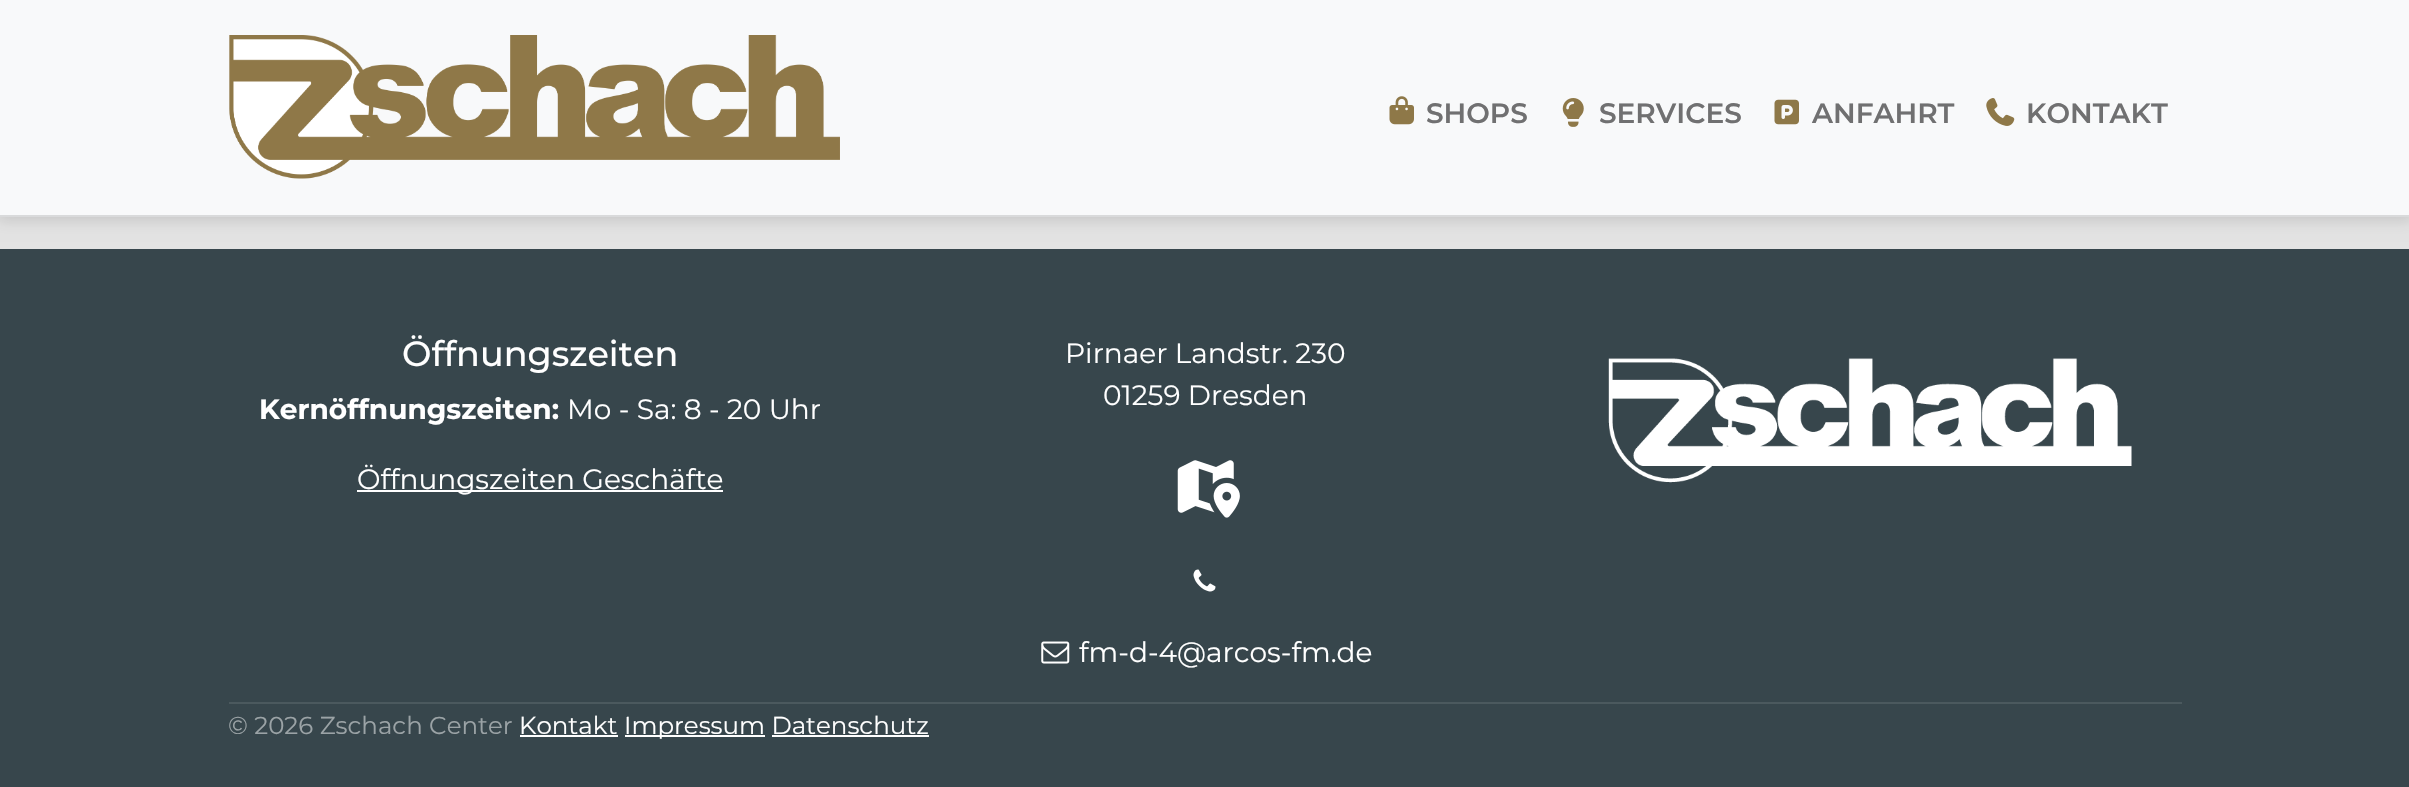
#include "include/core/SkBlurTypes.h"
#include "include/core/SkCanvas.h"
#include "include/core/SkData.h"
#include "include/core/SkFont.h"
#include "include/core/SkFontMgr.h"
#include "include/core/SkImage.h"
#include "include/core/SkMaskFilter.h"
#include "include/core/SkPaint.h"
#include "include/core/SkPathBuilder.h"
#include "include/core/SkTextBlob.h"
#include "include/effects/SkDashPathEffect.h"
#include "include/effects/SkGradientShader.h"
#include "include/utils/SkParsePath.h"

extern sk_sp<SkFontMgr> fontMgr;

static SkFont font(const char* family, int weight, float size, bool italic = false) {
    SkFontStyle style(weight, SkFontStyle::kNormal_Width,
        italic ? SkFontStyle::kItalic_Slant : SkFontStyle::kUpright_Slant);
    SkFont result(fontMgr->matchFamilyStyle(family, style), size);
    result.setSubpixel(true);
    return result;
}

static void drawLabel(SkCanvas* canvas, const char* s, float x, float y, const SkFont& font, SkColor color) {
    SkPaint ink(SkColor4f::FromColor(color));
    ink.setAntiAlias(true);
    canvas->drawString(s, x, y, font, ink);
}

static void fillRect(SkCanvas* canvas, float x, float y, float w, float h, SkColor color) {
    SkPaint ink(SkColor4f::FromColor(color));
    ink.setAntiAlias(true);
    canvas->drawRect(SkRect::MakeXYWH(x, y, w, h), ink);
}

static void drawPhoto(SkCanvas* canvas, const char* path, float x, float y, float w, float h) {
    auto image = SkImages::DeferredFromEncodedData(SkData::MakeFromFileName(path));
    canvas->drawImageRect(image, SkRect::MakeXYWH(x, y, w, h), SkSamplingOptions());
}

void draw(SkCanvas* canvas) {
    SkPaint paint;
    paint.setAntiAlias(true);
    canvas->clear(0xFFE3E3E3);
    paint.setColor(0x1F000000);
    paint.setMaskFilter(SkMaskFilter::MakeBlur(kNormal_SkBlurStyle, 7));
    canvas->drawRect(SkRect::MakeXYWH(-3, -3, 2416, 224), paint);
    paint.setMaskFilter(nullptr);
    fillRect(canvas, 0, 0, 2409, 215, 0xFFF8F9FA);
    fillRect(canvas, 0, 215, 2409, 2, 0xFFD9DADB);
    drawPhoto(canvas, "assets/img1.png", 229, 35, 611, 144);
    drawPhoto(canvas, "assets/img2.png", 1389, 96, 25, 29);
    SkFont font1 = font("Montserrat", 600, 28);
    drawLabel(canvas, "SHOPS", 1426, 123, font1, 0xFF707071);
    drawPhoto(canvas, "assets/img3.png", 1562, 98, 22, 29);
    drawLabel(canvas, "SERVICES", 1599, 123, font1, 0xFF707071);
    drawPhoto(canvas, "assets/img4.png", 1774, 99, 25, 26);
    drawLabel(canvas, "ANFAHRT", 1812, 123, font1, 0xFF707071);
    drawPhoto(canvas, "assets/img5.png", 1986, 98, 29, 28);
    drawLabel(canvas, "KONTAKT", 2026, 123, font1, 0xFF707071);
    fillRect(canvas, 0, 249, 2409, 538, 0xFF37464C);
    SkFont font2 = font("Montserrat", 500, 35);
    drawLabel(canvas, "Öffnungszeiten", 402, 366, font2, 0xFFFFFFFF);
    SkFont font3 = font("Montserrat", 700, 28);
    drawLabel(canvas, "Kernöffnungszeiten:", 259, 419, font3, 0xFFFFFFFF);
    SkFont font4 = font("Montserrat", 400, 28);
    drawLabel(canvas, "Mo - Sa: 8 - 20 Uhr", 567, 419, font4, 0xFFFFFFFF);
    fillRect(canvas, 357, 490, 366, 2, 0xFFFFFFFF);
    drawLabel(canvas, "Öffnungszeiten Geschäfte", 357, 489, font4, 0xFFFFFFFF);
    drawLabel(canvas, "Pirnaer Landstr. 230", 1065, 363, font4, 0xFFFFFFFF);
    drawLabel(canvas, "01259 Dresden", 1103, 405, font4, 0xFFFFFFFF);
    drawPhoto(canvas, "assets/img6.png", 1177, 460, 63, 58);
    drawPhoto(canvas, "assets/img7.png", 1193, 569, 23, 23);
    drawPhoto(canvas, "assets/img8.png", 1041, 641, 29, 23);
    drawLabel(canvas, "fm-d-4@arcos-fm.de", 1079, 662, font4, 0xFFFFFFFF);
    drawPhoto(canvas, "assets/img9.png", 1608, 358, 524, 125);
    fillRect(canvas, 229, 702, 1953, 2, 0xFF4B595E);
    SkFont font5 = font("Montserrat", 400, 24.5f);
    drawLabel(canvas, "© 2026 Zschach Center", 228, 734, font5, 0xFF9BA3A6);
    drawLabel(canvas, "Kontakt", 519, 734, font5, 0xFFFFFFFF);
    fillRect(canvas, 520, 735, 98, 2, 0xFFFFFFFF);
    fillRect(canvas, 625, 735, 140, 2, 0xFFFFFFFF);
    drawLabel(canvas, "Impressum Datenschutz", 624, 734, font5, 0xFFFFFFFF);
    fillRect(canvas, 772, 735, 157, 2, 0xFFFFFFFF);
}
